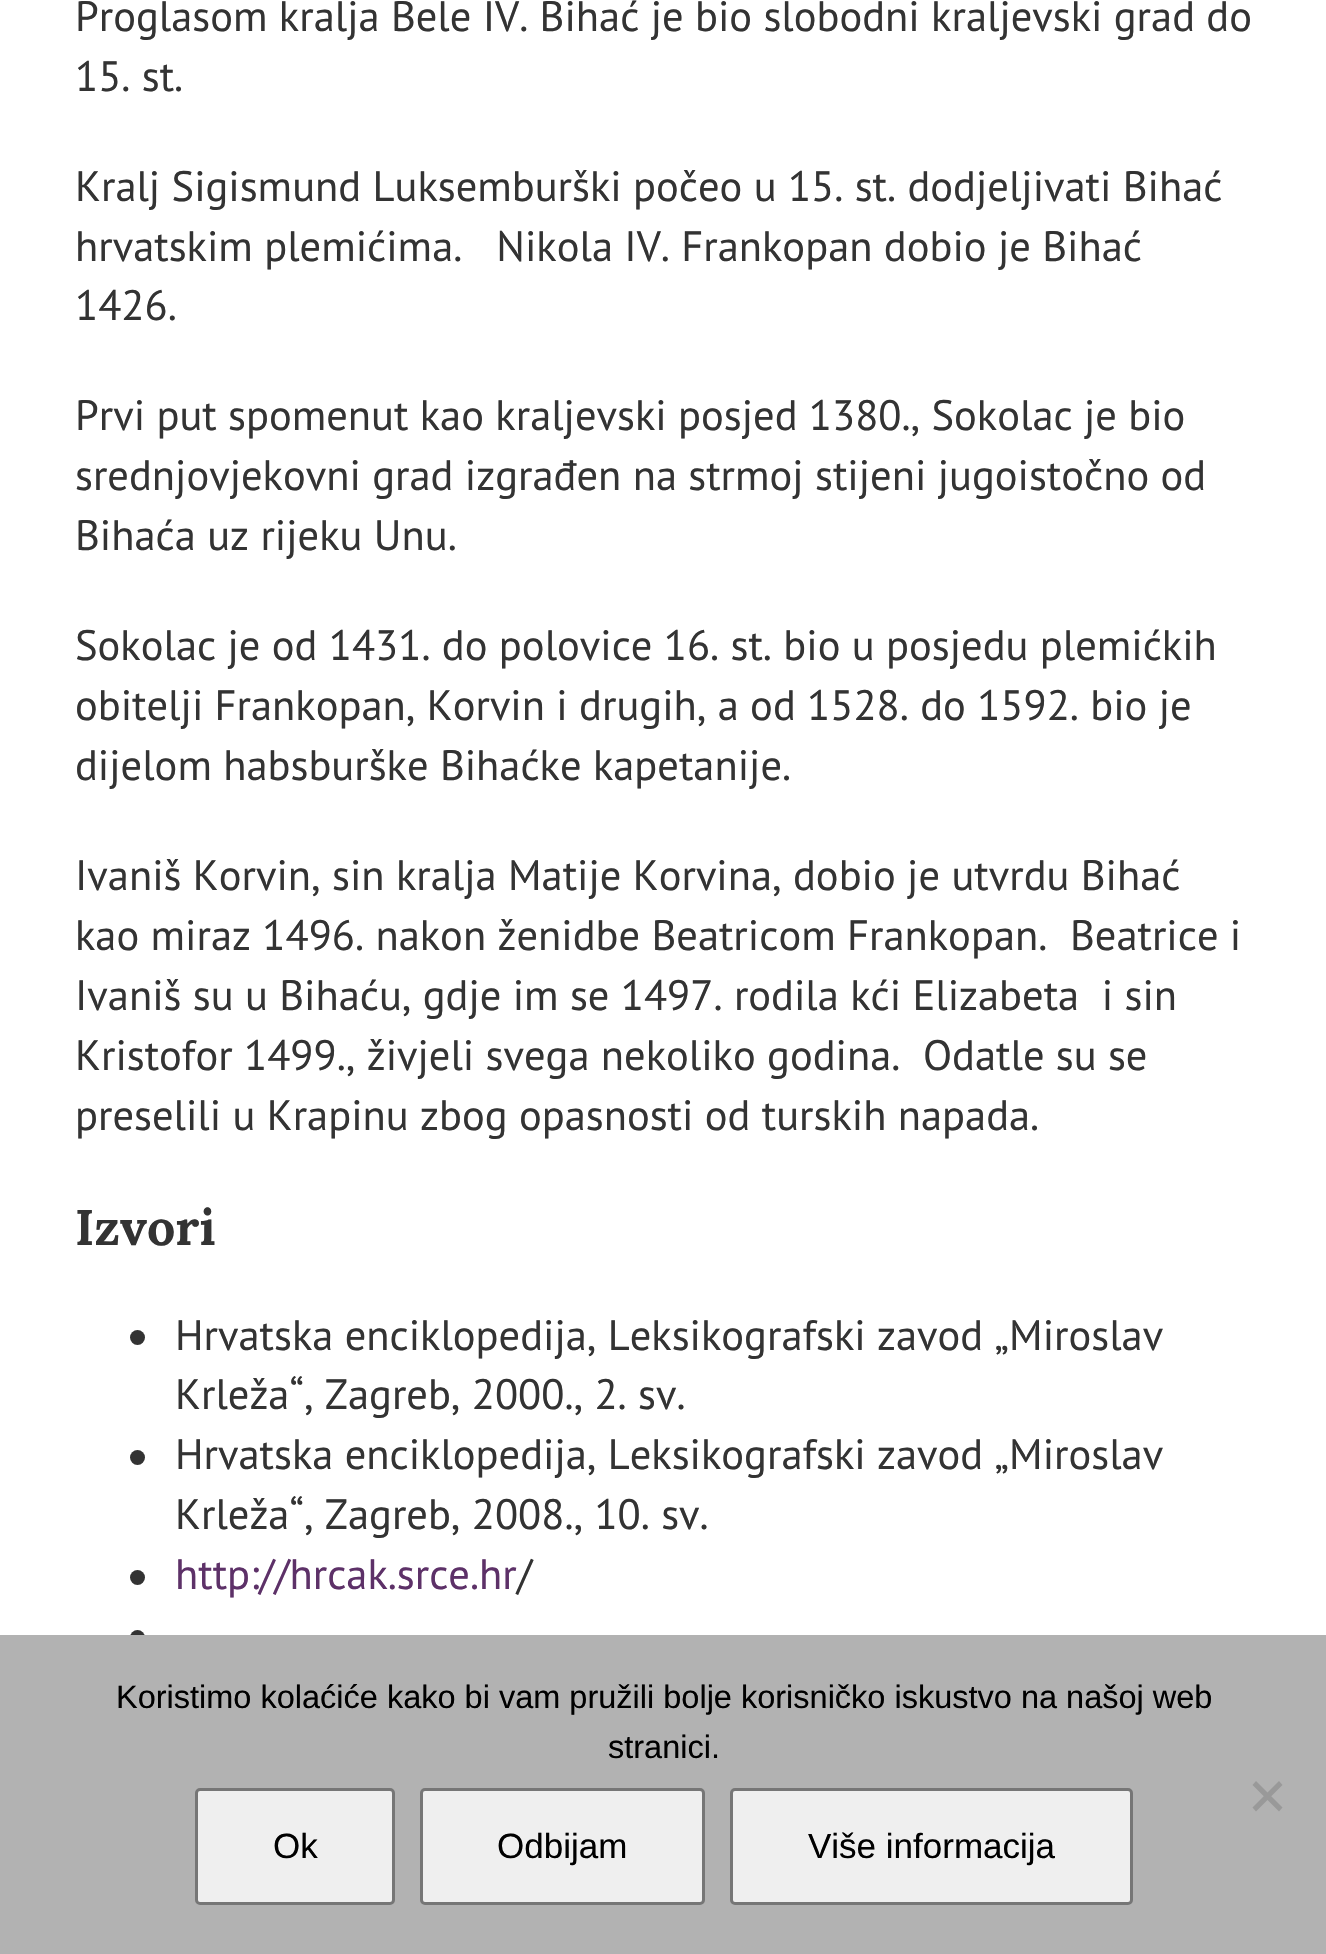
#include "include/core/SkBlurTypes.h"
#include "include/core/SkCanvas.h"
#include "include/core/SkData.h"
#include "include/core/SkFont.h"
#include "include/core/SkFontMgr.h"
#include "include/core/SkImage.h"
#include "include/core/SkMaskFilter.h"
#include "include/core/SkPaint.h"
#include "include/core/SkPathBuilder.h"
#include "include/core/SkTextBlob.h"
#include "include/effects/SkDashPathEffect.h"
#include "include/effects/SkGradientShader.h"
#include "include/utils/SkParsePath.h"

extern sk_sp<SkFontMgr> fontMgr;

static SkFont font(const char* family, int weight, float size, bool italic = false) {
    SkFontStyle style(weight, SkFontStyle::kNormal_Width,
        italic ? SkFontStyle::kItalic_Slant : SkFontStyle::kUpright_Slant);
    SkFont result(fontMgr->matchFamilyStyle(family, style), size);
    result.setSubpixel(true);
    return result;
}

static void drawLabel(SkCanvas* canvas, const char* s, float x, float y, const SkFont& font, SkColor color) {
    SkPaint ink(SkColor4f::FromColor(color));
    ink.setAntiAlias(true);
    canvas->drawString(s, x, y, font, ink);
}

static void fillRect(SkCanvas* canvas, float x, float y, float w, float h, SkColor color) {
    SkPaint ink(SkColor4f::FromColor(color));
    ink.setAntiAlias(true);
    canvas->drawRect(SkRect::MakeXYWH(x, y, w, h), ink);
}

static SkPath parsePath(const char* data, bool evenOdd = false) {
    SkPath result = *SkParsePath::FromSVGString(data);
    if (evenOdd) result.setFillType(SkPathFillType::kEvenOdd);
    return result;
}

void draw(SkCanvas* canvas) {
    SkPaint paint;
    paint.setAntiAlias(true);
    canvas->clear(0xFFFFFFFF);
    SkFont font1 = font("PT Sans", 400, 42.5f);
    drawLabel(canvas, "Proglasom kralja Bele IV. Bihać je bio slobodni kraljevski grad do", 75, 31, font1, 0xFF333333);
    drawLabel(canvas, "15. st.", 75, 91, font1, 0xFF333333);
    drawLabel(canvas, "Kralj Sigismund Luksemburški počeo u 15. st. dodjeljivati Bihać", 75, 201, font1, 0xFF333333);
    drawLabel(canvas, "hrvatskim plemićima.   Nikola IV. Frankopan dobio je Bihać", 75, 261, font1, 0xFF333333);
    drawLabel(canvas, "1426.", 75, 320, font1, 0xFF333333);
    drawLabel(canvas, "Prvi put spomenut kao kraljevski posjed 1380., Sokolac je bio", 75, 430, font1, 0xFF333333);
    drawLabel(canvas, "srednjovjekovni grad izgrađen na strmoj stijeni jugoistočno od", 75, 490, font1, 0xFF333333);
    drawLabel(canvas, "Bihaća uz rijeku Unu.", 75, 550, font1, 0xFF333333);
    drawLabel(canvas, "Sokolac je od 1431. do polovice 16. st. bio u posjedu plemićkih", 75, 660, font1, 0xFF333333);
    drawLabel(canvas, "obitelji Frankopan, Korvin i drugih, a od 1528. do 1592. bio je", 75, 720, font1, 0xFF333333);
    drawLabel(canvas, "dijelom habsburške Bihaćke kapetanije.", 75, 780, font1, 0xFF333333);
    drawLabel(canvas, "Ivaniš Korvin, sin kralja Matije Korvina, dobio je utvrdu Bihać", 75, 890, font1, 0xFF333333);
    drawLabel(canvas, "kao miraz 1496. nakon ženidbe Beatricom Frankopan.  Beatrice i", 75, 950, font1, 0xFF333333);
    drawLabel(canvas, "Ivaniš su u Bihaću, gdje im se 1497. rodila kći Elizabeta  i sin", 75, 1010, font1, 0xFF333333);
    drawLabel(canvas, "Kristofor 1499., živjeli svega nekoliko godina.  Odatle su se", 75, 1070, font1, 0xFF333333);
    drawLabel(canvas, "preselili u Krapinu zbog opasnosti od turskih napada.", 75, 1130, font1, 0xFF333333);
    SkFont font2 = font("Lora", 700, 50);
    drawLabel(canvas, "Izvori", 75, 1245, font2, 0xFF333333);
    paint.setColor(0xFF333333);
    canvas->drawCircle(137.5f, 1337.5f, 7.5f, paint);
    drawLabel(canvas, "Hrvatska enciklopedija, Leksikografski zavod „Miroslav", 175, 1350, font1, 0xFF333333);
    drawLabel(canvas, "Krleža“, Zagreb, 2000., 2. sv.", 175, 1409, font1, 0xFF333333);
    canvas->drawCircle(137.5f, 1457.5f, 7.5f, paint);
    drawLabel(canvas, "Hrvatska enciklopedija, Leksikografski zavod „Miroslav", 175, 1469, font1, 0xFF333333);
    drawLabel(canvas, "Krleža“, Zagreb, 2008., 10. sv.", 175, 1529, font1, 0xFF333333);
    canvas->drawCircle(137.5f, 1577.5f, 7.5f, paint);
    drawLabel(canvas, "http://hrcak.srce.hr", 175, 1589, font1, 0xFF5D3168);
    drawLabel(canvas, "/", 517, 1589, font1, 0xFF333333);
    canvas->drawCircle(137.5f, 1637.5f, 7.5f, paint);
    fillRect(canvas, 0, 1635, 1326, 319, 0xFFB2B2B2);
    SkFont font3 = font("Liberation Sans", 400, 32.5f);
    drawLabel(canvas, "Koristimo kolaćiće kako bi vam pružili bolje korisničko iskustvo na našoj web", 116, 1708, font3, 0xFF000000);
    drawLabel(canvas, "stranici.", 608, 1758, font3, 0xFF000000);
    paint.setColor(0xFF999999);
    canvas->drawPath(parsePath("M1279 1781L1282.5 1785L1256 1811.5L1252.5 1807.5Z"), paint);
    canvas->drawPath(parsePath("M1252.5 1785L1256 1781L1282.5 1807.5L1279 1811.5Z"), paint);
    paint.setColor(0xFFEFEFEF);
    canvas->drawRoundRect(SkRect::MakeXYWH(196.5f, 1789.5f, 197, 114), 3.5f, 3.5f, paint);
    paint.setStroke(true);
    paint.setStrokeWidth(3);
    paint.setColor(0xFF767676);
    canvas->drawRoundRect(SkRect::MakeXYWH(196.5f, 1789.5f, 197, 114), 3.5f, 3.5f, paint);
    SkFont font4 = font("Liberation Sans", 400, 35);
    drawLabel(canvas, "Ok", 273, 1858, font4, 0xFF000000);
    paint.setStroke(false);
    paint.setColor(0xFFEFEFEF);
    canvas->drawRoundRect(SkRect::MakeXYWH(421.5f, 1789.5f, 282, 114), 3.5f, 3.5f, paint);
    paint.setStroke(true);
    paint.setColor(0xFF767676);
    canvas->drawRoundRect(SkRect::MakeXYWH(421.5f, 1789.5f, 282, 114), 3.5f, 3.5f, paint);
    drawLabel(canvas, "Odbijam", 497, 1858, font4, 0xFF000000);
    paint.setStroke(false);
    paint.setColor(0xFFEFEFEF);
    canvas->drawRoundRect(SkRect::MakeXYWH(731.5f, 1789.5f, 400, 114), 3.5f, 3.5f, paint);
    paint.setStroke(true);
    paint.setColor(0xFF767676);
    canvas->drawRoundRect(SkRect::MakeXYWH(731.5f, 1789.5f, 400, 114), 3.5f, 3.5f, paint);
    drawLabel(canvas, "Više informacija", 808, 1858, font4, 0xFF000000);
}
